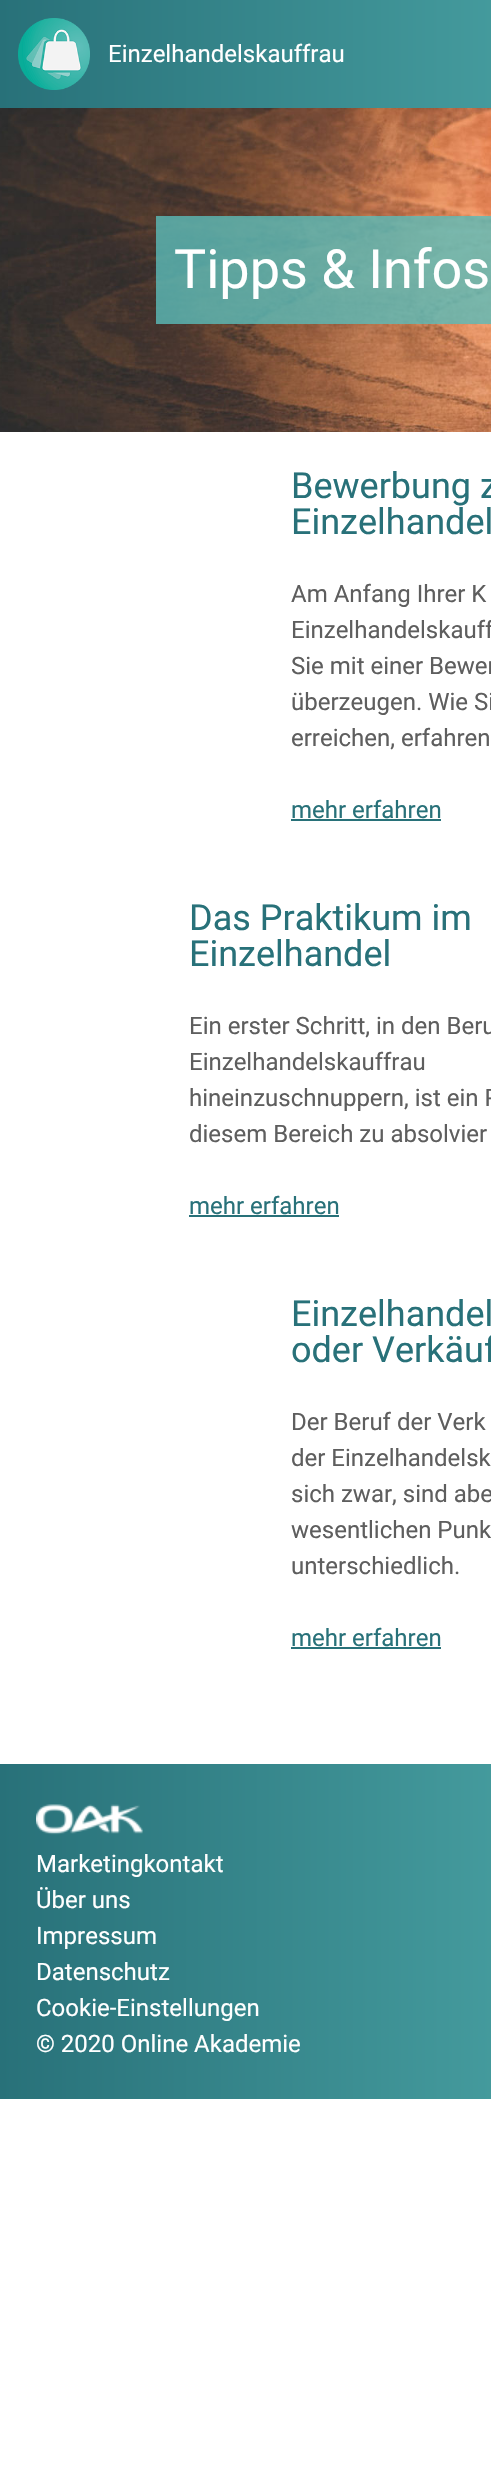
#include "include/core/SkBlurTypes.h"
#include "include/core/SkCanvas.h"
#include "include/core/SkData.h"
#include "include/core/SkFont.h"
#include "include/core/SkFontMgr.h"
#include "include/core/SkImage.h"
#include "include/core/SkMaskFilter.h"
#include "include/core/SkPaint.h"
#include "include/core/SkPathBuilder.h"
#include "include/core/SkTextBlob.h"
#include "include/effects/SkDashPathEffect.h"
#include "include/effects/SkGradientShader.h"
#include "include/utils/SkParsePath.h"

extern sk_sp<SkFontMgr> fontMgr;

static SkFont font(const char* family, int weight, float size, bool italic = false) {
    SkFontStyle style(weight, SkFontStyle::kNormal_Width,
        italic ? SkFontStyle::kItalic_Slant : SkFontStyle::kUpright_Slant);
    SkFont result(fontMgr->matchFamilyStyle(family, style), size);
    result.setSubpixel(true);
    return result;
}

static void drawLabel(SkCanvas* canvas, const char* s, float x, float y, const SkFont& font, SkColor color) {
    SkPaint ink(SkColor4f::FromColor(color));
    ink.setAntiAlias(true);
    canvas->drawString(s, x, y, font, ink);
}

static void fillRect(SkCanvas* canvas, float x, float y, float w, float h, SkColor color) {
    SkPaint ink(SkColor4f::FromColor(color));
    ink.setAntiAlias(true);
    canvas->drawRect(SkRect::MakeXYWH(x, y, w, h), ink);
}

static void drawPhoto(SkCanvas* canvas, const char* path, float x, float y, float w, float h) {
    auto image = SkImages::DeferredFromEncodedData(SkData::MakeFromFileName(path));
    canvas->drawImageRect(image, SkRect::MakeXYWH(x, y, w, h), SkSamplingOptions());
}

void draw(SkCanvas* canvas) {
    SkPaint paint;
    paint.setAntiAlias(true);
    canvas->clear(0xFFFFFFFF);
    {
        const SkColor colors[] = {0xFF287179, 0xFF5ABBB9};
        const float stops[] = {0, 1};
        const SkPoint ends[] = {{0, 54}, {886, 54}};
        paint.setShader(SkGradientShader::MakeLinear(ends, colors, stops, 2, SkTileMode::kClamp));
        paint.setAlpha(255);
    }
    canvas->drawRect(SkRect::MakeXYWH(0, 0, 491, 108), paint);
    drawPhoto(canvas, "assets/img1.png", 18, 18, 72, 72);
    SkFont font1 = font("Roboto", 400, 24);
    drawLabel(canvas, "Einzelhandelskauffrau", 108, 62, font1, 0xFFFFFFFF);
    drawPhoto(canvas, "assets/img2.png", 0, 108, 491, 324);
    fillRect(canvas, 156, 216, 335, 108, 0xCC5ABBB9);
    SkFont font2 = font("Roboto", 400, 54);
    drawLabel(canvas, "Tipps & Infos", 174, 288, font2, 0xFFFFFFFF);
    SkFont font3 = font("Roboto", 400, 36);
    drawLabel(canvas, "Bewerbung z", 291, 498, font3, 0xFF287179);
    drawLabel(canvas, "Einzelhandel", 291, 534, font3, 0xFF287179);
    drawLabel(canvas, "Am Anfang Ihrer K", 291, 602, font1, 0xFF5E5E5E);
    drawLabel(canvas, "Einzelhandelskauff", 291, 638, font1, 0xFF5E5E5E);
    drawLabel(canvas, "Sie mit einer Bewer", 291, 674, font1, 0xFF5E5E5E);
    drawLabel(canvas, "überzeugen. Wie Si", 291, 710, font1, 0xFF5E5E5E);
    drawLabel(canvas, "erreichen, erfahren", 291, 746, font1, 0xFF5E5E5E);
    drawLabel(canvas, "mehr erfahren", 291, 818, font1, 0xFF287179);
    fillRect(canvas, 291, 819, 150, 2, 0xFF287179);
    drawLabel(canvas, "Das Praktikum im", 189, 930, font3, 0xFF287179);
    drawLabel(canvas, "Einzelhandel", 189, 966, font3, 0xFF287179);
    drawLabel(canvas, "Ein erster Schritt, in den Beru", 189, 1034, font1, 0xFF5E5E5E);
    drawLabel(canvas, "Einzelhandelskauffrau", 189, 1070, font1, 0xFF5E5E5E);
    drawLabel(canvas, "hineinzuschnuppern, ist ein P", 189, 1106, font1, 0xFF5E5E5E);
    drawLabel(canvas, "diesem Bereich zu absolvier", 189, 1142, font1, 0xFF5E5E5E);
    drawLabel(canvas, "mehr erfahren", 189, 1214, font1, 0xFF287179);
    fillRect(canvas, 189, 1215, 150, 2, 0xFF287179);
    drawLabel(canvas, "Einzelhandel", 291, 1326, font3, 0xFF287179);
    drawLabel(canvas, "oder Verkäuf", 291, 1362, font3, 0xFF287179);
    drawLabel(canvas, "Der Beruf der Verk", 291, 1430, font1, 0xFF5E5E5E);
    drawLabel(canvas, "der Einzelhandelsk", 291, 1466, font1, 0xFF5E5E5E);
    drawLabel(canvas, "sich zwar, sind abe", 291, 1502, font1, 0xFF5E5E5E);
    drawLabel(canvas, "wesentlichen Punk", 291, 1538, font1, 0xFF5E5E5E);
    drawLabel(canvas, "unterschiedlich.", 291, 1574, font1, 0xFF5E5E5E);
    drawLabel(canvas, "mehr erfahren", 291, 1646, font1, 0xFF287179);
    fillRect(canvas, 291, 1647, 150, 2, 0xFF287179);
    {
        const SkColor colors[] = {0xFF287179, 0xFF5ABBB9};
        const float stops[] = {0, 1};
        const SkPoint ends[] = {{0, 1931}, {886, 1931}};
        paint.setShader(SkGradientShader::MakeLinear(ends, colors, stops, 2, SkTileMode::kClamp));
        paint.setAlpha(255);
    }
    canvas->drawRect(SkRect::MakeXYWH(0, 1764, 491, 335), paint);
    drawPhoto(canvas, "assets/img3.png", 36, 1804, 107, 31);
    drawLabel(canvas, "Marketingkontakt", 36, 1872, font1, 0xFFFFFFFF);
    drawLabel(canvas, "Über uns", 36, 1908, font1, 0xFFFFFFFF);
    drawLabel(canvas, "Impressum", 36, 1944, font1, 0xFFFFFFFF);
    drawLabel(canvas, "Datenschutz", 36, 1980, font1, 0xFFFFFFFF);
    drawLabel(canvas, "Cookie-Einstellungen", 36, 2016, font1, 0xFFFFFFFF);
    drawLabel(canvas, "© 2020 Online Akademie", 36, 2052, font1, 0xFFFFFFFF);
}
